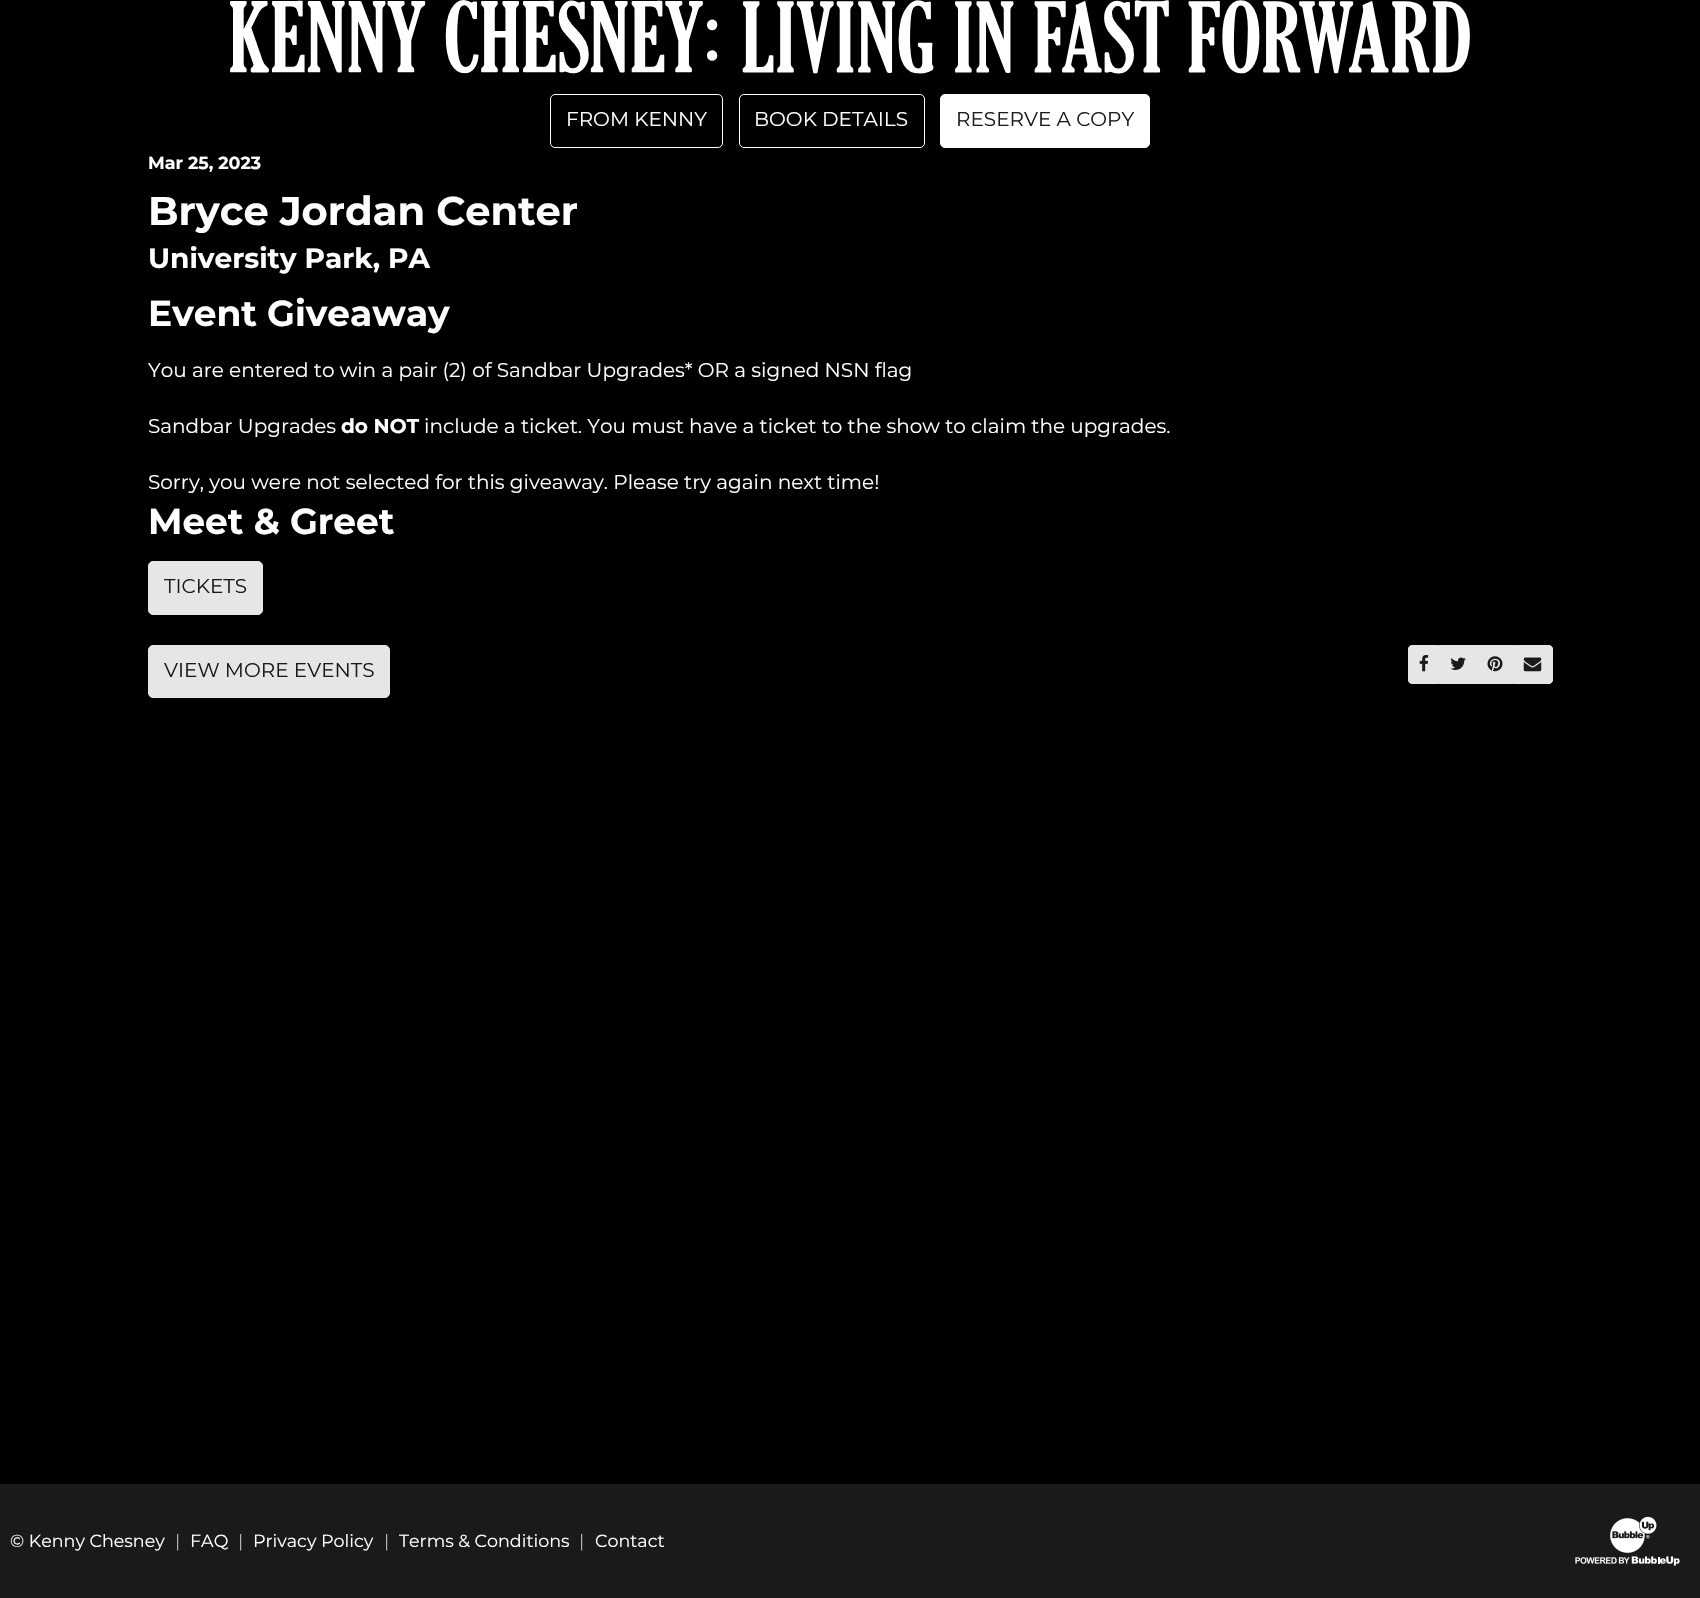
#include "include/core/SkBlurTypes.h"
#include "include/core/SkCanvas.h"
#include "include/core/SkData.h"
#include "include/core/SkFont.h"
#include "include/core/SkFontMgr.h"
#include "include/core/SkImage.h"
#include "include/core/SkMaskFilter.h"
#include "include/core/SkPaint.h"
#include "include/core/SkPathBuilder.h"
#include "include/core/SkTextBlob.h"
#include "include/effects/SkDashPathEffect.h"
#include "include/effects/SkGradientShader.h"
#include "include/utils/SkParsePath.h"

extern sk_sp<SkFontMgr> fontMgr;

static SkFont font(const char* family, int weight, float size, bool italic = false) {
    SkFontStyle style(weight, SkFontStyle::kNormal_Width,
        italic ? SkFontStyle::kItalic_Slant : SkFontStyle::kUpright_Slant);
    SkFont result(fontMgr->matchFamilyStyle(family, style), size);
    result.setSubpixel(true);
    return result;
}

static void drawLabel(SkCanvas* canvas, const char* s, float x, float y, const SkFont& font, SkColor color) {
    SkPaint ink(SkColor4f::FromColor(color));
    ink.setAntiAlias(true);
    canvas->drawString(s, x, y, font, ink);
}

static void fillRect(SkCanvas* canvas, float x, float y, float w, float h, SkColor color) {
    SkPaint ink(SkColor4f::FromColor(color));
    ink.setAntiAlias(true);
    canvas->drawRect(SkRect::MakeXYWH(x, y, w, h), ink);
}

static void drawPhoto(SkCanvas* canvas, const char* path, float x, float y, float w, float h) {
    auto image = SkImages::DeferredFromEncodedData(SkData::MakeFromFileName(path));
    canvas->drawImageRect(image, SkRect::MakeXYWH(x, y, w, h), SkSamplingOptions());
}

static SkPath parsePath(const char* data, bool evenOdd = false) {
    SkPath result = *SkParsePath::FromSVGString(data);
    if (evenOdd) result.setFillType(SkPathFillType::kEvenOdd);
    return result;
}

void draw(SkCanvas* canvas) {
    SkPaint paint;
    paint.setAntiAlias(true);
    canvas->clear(0xFF000000);
    drawPhoto(canvas, "assets/img1.png", 230, 0, 1240, 74);
    paint.setStroke(true);
    paint.setStrokeWidth(1);
    paint.setColor(0xFFFFFFFF);
    canvas->drawRoundRect(SkRect::MakeXYWH(550.5f, 94.5f, 172, 53), 4.5f, 4.5f, paint);
    SkFont font1 = font("Montserrat", 400, 20);
    drawLabel(canvas, "FROM KENNY", 566, 126, font1, 0xFFFFFFFF);
    canvas->drawRoundRect(SkRect::MakeXYWH(739.5f, 94.5f, 185, 53), 4.5f, 4.5f, paint);
    drawLabel(canvas, "BOOK DETAILS", 754, 126, font1, 0xFFFFFFFF);
    paint.setStroke(false);
    canvas->drawRoundRect(SkRect::MakeXYWH(940.5f, 94.5f, 209, 53), 4.5f, 4.5f, paint);
    paint.setStroke(true);
    canvas->drawRoundRect(SkRect::MakeXYWH(940.5f, 94.5f, 209, 53), 4.5f, 4.5f, paint);
    drawLabel(canvas, "RESERVE A COPY", 956, 126, font1, 0xFF1A1A1A);
    SkFont font2 = font("Montserrat", 700, 17.5f);
    drawLabel(canvas, "Mar 25, 2023", 148, 169, font2, 0xFFFFFFFF);
    SkFont font3 = font("Montserrat", 700, 40);
    drawLabel(canvas, "Bryce Jordan Center", 148, 225, font3, 0xFFFFFFFF);
    SkFont font4 = font("Montserrat", 700, 28);
    drawLabel(canvas, "University Park, PA", 148, 268, font4, 0xFFFFFFFF);
    SkFont font5 = font("Montserrat", 700, 36);
    drawLabel(canvas, "Event Giveaway", 148, 326, font5, 0xFFFFFFFF);
    drawLabel(canvas, "You are entered to win a pair (2) of Sandbar Upgrades* OR a signed NSN flag", 148, 377, font1, 0xFFFFFFFF);
    drawLabel(canvas, "Sandbar Upgrades", 148, 433, font1, 0xFFFFFFFF);
    SkFont font6 = font("Montserrat", 700, 20);
    drawLabel(canvas, "do NOT", 341, 433, font6, 0xFFFFFFFF);
    drawLabel(canvas, "include a ticket. You must have a ticket to the show to claim the upgrades.", 424, 433, font1, 0xFFFFFFFF);
    drawLabel(canvas, "Sorry, you were not selected for this giveaway. Please try again next time!", 148, 489, font1, 0xFFFFFFFF);
    drawLabel(canvas, "Meet & Greet", 148, 534, font5, 0xFFFFFFFF);
    paint.setStroke(false);
    paint.setColor(0xFFE6E6E6);
    canvas->drawRoundRect(SkRect::MakeXYWH(148.5f, 561.5f, 114, 53), 4.5f, 4.5f, paint);
    paint.setStroke(true);
    canvas->drawRoundRect(SkRect::MakeXYWH(148.5f, 561.5f, 114, 53), 4.5f, 4.5f, paint);
    drawLabel(canvas, "TICKETS", 164, 593, font1, 0xFF1A1A1A);
    paint.setStroke(false);
    canvas->drawRoundRect(SkRect::MakeXYWH(148.5f, 645.5f, 241, 52), 4.5f, 4.5f, paint);
    paint.setStroke(true);
    canvas->drawRoundRect(SkRect::MakeXYWH(148.5f, 645.5f, 241, 52), 4.5f, 4.5f, paint);
    drawLabel(canvas, "VIEW MORE EVENTS", 164, 677, font1, 0xFF1A1A1A);
    paint.setStroke(false);
    canvas->drawPath(parsePath("M1412 645.5H1439.5V683.5H1412C1410 683.5 1408.5 682 1408.5 680V649C1408.5 647 1410 645.5 1412 645.5Z"), paint);
    paint.setStroke(true);
    canvas->drawPath(parsePath("M1412 645.5H1439.5V683.5H1412C1410 683.5 1408.5 682 1408.5 680V649C1408.5 647 1410 645.5 1412 645.5Z"), paint);
    drawPhoto(canvas, "assets/img2.png", 1419, 655, 10, 17);
    fillRect(canvas, 1440, 645, 73, 39, 0xFFE6E6E6);
    drawPhoto(canvas, "assets/img3.png", 1450, 657, 16, 13);
    paint.setStroke(false);
    canvas->drawPath(parsePath("M1513.5 645.5H1549C1551 645.5 1552.5 647 1552.5 649V680C1552.5 682 1551 683.5 1549 683.5H1513.5Z"), paint);
    paint.setStroke(true);
    canvas->drawPath(parsePath("M1513.5 645.5H1549C1551 645.5 1552.5 647 1552.5 649V680C1552.5 682 1551 683.5 1549 683.5H1513.5Z"), paint);
    drawPhoto(canvas, "assets/img4.png", 1523, 657, 19, 15);
    drawPhoto(canvas, "assets/img5.png", 1487, 656, 16, 16);
    fillRect(canvas, 0, 1484, 1700, 114, 0xFF1A1A1A);
    SkFont font7 = font("Montserrat", 400, 17.5f);
    drawLabel(canvas, "© Kenny Chesney", 10, 1547, font7, 0xFFFFFFFF);
    drawLabel(canvas, "|", 175, 1547, font7, 0xFFB3B3B3);
    drawLabel(canvas, "FAQ", 190, 1547, font7, 0xFFFFFFFF);
    drawLabel(canvas, "|", 238, 1547, font7, 0xFFB3B3B3);
    drawLabel(canvas, "Privacy Policy", 253, 1547, font7, 0xFFFFFFFF);
    drawLabel(canvas, "|", 384, 1547, font7, 0xFFB3B3B3);
    drawLabel(canvas, "Terms & Conditions", 399, 1547, font7, 0xFFFFFFFF);
    drawLabel(canvas, "|", 579, 1547, font7, 0xFFB3B3B3);
    drawLabel(canvas, "Contact", 595, 1547, font7, 0xFFFFFFFF);
    drawPhoto(canvas, "assets/img6.png", 1575, 1516, 105, 50);
}
